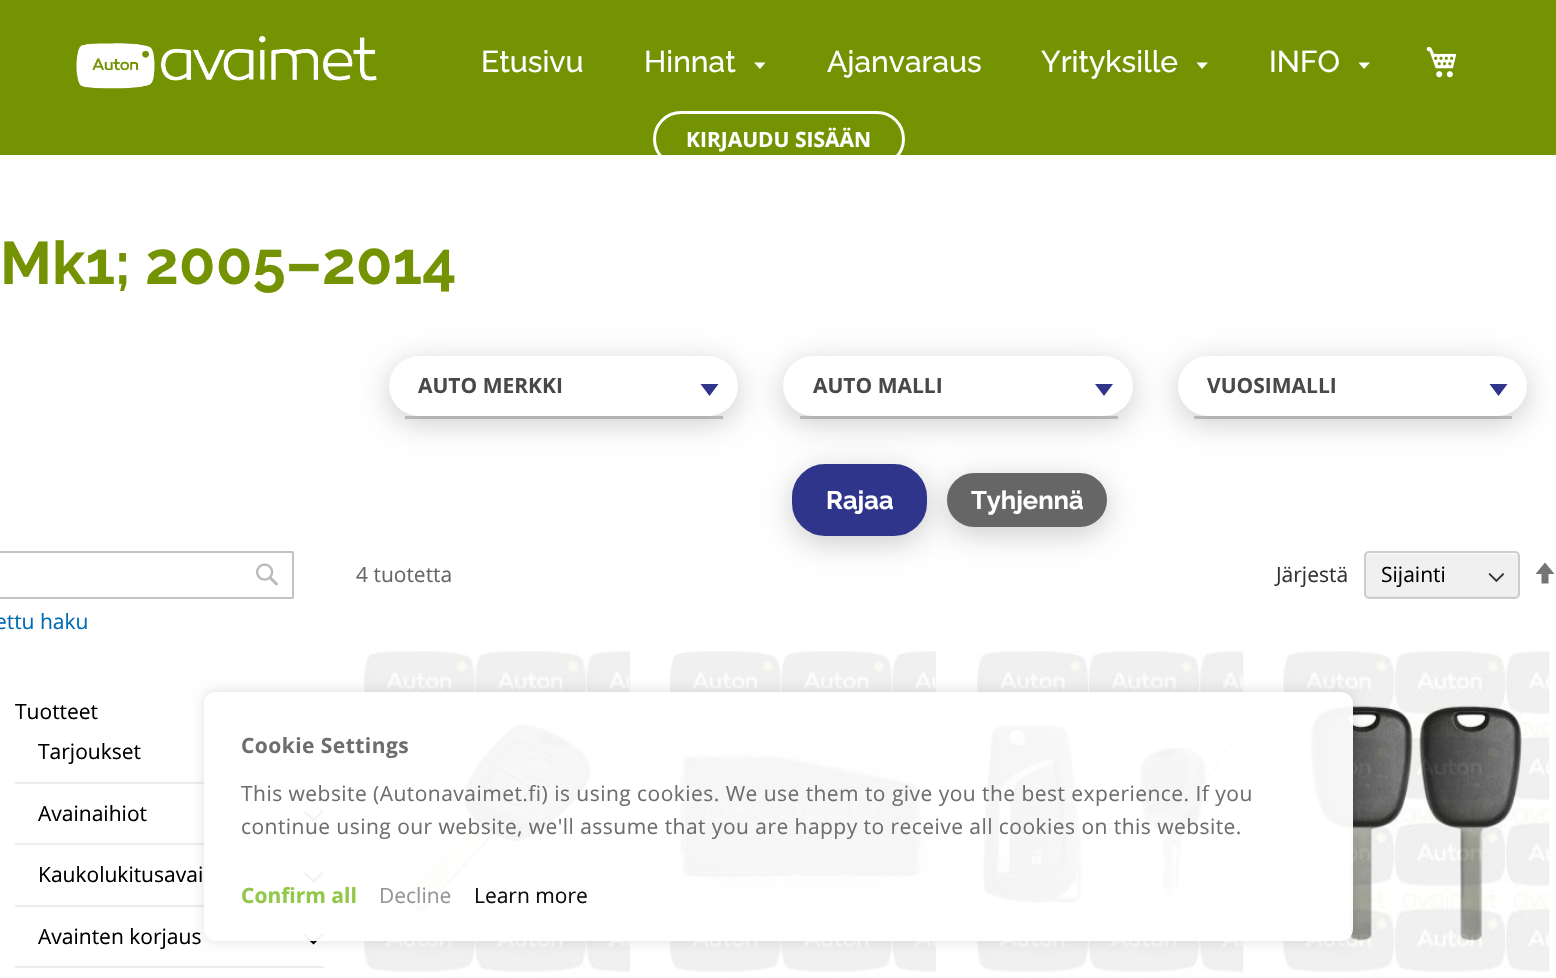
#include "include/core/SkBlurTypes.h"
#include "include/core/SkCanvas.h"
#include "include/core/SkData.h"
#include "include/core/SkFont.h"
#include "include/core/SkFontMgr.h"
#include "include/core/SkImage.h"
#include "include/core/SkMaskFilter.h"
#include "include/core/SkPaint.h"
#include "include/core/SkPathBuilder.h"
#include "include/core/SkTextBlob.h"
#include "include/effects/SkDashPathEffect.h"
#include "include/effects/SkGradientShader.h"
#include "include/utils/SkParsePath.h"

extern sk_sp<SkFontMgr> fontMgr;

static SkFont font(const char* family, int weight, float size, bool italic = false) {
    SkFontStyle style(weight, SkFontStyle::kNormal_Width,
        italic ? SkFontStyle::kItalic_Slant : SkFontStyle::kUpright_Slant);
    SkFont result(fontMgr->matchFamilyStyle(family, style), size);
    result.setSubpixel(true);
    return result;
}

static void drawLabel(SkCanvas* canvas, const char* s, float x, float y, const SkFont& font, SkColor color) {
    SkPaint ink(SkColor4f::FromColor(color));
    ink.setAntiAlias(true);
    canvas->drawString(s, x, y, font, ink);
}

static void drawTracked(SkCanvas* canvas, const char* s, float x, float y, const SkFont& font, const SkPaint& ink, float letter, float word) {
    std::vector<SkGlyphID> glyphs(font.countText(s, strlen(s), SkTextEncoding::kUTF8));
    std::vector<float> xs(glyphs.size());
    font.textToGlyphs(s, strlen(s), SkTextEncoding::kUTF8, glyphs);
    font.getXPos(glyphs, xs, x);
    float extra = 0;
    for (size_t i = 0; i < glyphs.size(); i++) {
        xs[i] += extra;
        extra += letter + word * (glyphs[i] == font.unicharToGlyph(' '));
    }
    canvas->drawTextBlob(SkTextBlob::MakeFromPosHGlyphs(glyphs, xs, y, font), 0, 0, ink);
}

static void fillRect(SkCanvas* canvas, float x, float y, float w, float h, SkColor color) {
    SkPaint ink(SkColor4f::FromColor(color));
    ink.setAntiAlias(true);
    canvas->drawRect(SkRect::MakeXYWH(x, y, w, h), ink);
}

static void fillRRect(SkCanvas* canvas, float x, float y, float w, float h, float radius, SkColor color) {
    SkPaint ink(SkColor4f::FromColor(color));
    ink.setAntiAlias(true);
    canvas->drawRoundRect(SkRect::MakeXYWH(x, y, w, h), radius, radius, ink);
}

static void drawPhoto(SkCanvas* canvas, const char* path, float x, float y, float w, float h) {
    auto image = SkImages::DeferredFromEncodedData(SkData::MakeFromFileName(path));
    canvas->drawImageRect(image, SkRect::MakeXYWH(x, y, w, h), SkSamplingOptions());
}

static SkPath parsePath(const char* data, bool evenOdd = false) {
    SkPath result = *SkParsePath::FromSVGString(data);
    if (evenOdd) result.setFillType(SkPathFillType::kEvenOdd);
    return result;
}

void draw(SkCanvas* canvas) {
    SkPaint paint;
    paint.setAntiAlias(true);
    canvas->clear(0xFFFFFFFF);
    fillRect(canvas, 0, 0, 1556, 155, 0xFF749303);
    drawPhoto(canvas, "assets/img1.png", 76, 36, 301, 53);
    SkFont font1 = font("Raleway", 500, 30);
    drawLabel(canvas, "Etusivu", 481, 72, font1, 0xFFFFFFFF);
    drawLabel(canvas, "Hinnat", 644, 72, font1, 0xFFFFFFFF);
    paint.setColor(0xFFFFFFFF);
    canvas->drawPath(parsePath("M754 62.5L760 69L765.5 62.5Z"), paint);
    drawLabel(canvas, "Ajanvaraus", 827, 72, font1, 0xFFFFFFFF);
    drawLabel(canvas, "Yrityksille", 1041, 72, font1, 0xFFFFFFFF);
    canvas->drawPath(parsePath("M1196.5 62.5L1202 69L1208 62.5Z"), paint);
    drawLabel(canvas, "INFO", 1269, 72, font1, 0xFFFFFFFF);
    canvas->drawPath(parsePath("M1358.5 62.5L1364 69L1370 62.5Z"), paint);
    drawPhoto(canvas, "assets/img2.png", 1426, 46, 31, 32);
    paint.setStroke(true);
    paint.setStrokeWidth(3);
    canvas->drawRoundRect(SkRect::MakeXYWH(654.5f, 112.5f, 249, 53), 26.5f, 26.5f, paint);
    SkFont font2 = font("Open Sans", 700, 21);
    drawLabel(canvas, "KIRJAUDU SISÄÄN", 686, 147, font2, 0xFFFFFFFF);
    SkFont font3 = font("Raleway", 700, 60);
    drawLabel(canvas, "Mk1; 2005–2014", 0, 284, font3, 0xFF749303);
    fillRect(canvas, 405, 416, 318, 3, 0xFFCCCCCC);
    paint.setStroke(false);
    paint.setColor(0x33000000);
    paint.setMaskFilter(SkMaskFilter::MakeBlur(kNormal_SkBlurStyle, 15));
    canvas->drawRoundRect(SkRect::MakeXYWH(389, 363, 349, 60), 30, 30, paint);
    paint.setMaskFilter(nullptr);
    fillRRect(canvas, 389, 356, 349, 60, 30, 0xFFFFFFFF);
    drawLabel(canvas, "AUTO MERKKI", 418, 393, font2, 0xFF494949);
    paint.setColor(0xFF2F358B);
    canvas->drawPath(parsePath("M700.5 384H718.5L709.5 396Z"), paint);
    fillRect(canvas, 800, 416, 318, 3, 0xFFCCCCCC);
    paint.setColor(0x33000000);
    paint.setMaskFilter(SkMaskFilter::MakeBlur(kNormal_SkBlurStyle, 15));
    canvas->drawRoundRect(SkRect::MakeXYWH(792, 471, 135, 72), 33, 33, paint);
    paint.setMaskFilter(nullptr);
    paint.setColor(0xFF2F358B);
    canvas->drawRoundRect(SkRect::MakeXYWH(793.5f, 465.5f, 132, 69), 31.5f, 31.5f, paint);
    paint.setStroke(true);
    canvas->drawRoundRect(SkRect::MakeXYWH(793.5f, 465.5f, 132, 69), 31.5f, 31.5f, paint);
    paint.setStroke(false);
    paint.setColor(0x33000000);
    paint.setMaskFilter(SkMaskFilter::MakeBlur(kNormal_SkBlurStyle, 15));
    canvas->drawRoundRect(SkRect::MakeXYWH(783, 363, 350, 60), 30, 30, paint);
    paint.setMaskFilter(nullptr);
    fillRRect(canvas, 783, 356, 350, 60, 30, 0xFFFFFFFF);
    drawLabel(canvas, "AUTO MALLI", 813, 393, font2, 0xFF494949);
    paint.setColor(0xFF2F358B);
    canvas->drawPath(parsePath("M1095 384H1113L1104 396Z"), paint);
    fillRect(canvas, 1194, 416, 318, 3, 0xFFCCCCCC);
    paint.setColor(0x33000000);
    paint.setMaskFilter(SkMaskFilter::MakeBlur(kNormal_SkBlurStyle, 15));
    canvas->drawRoundRect(SkRect::MakeXYWH(1178, 363, 349, 60), 30, 30, paint);
    paint.setMaskFilter(nullptr);
    fillRRect(canvas, 1178, 356, 349, 60, 30, 0xFFFFFFFF);
    drawLabel(canvas, "VUOSIMALLI", 1207, 393, font2, 0xFF494949);
    paint.setColor(0xFF2F358B);
    canvas->drawPath(parsePath("M1489.5 384H1507.5L1498.5 396Z"), paint);
    SkFont font4 = font("Raleway", 700, 25.5f);
    drawLabel(canvas, "Rajaa", 826, 509, font4, 0xFFFFFFFF);
    paint.setColor(0x33000000);
    paint.setMaskFilter(SkMaskFilter::MakeBlur(kNormal_SkBlurStyle, 15));
    canvas->drawRoundRect(SkRect::MakeXYWH(947, 480, 160, 54), 27, 27, paint);
    paint.setMaskFilter(nullptr);
    paint.setColor(0xFF666666);
    canvas->drawRoundRect(SkRect::MakeXYWH(948, 474, 158, 52), 26, 26, paint);
    paint.setStroke(true);
    paint.setStrokeWidth(2);
    canvas->drawRoundRect(SkRect::MakeXYWH(948, 474, 158, 52), 26, 26, paint);
    drawLabel(canvas, "Tyhjennä", 971, 509, font4, 0xFFFFFFFF);
    SkFont font5 = font("Open Sans", 400, 21);
    drawLabel(canvas, "4 tuotetta", 356, 582, font5, 0xFF666666);
    drawLabel(canvas, "Järjestä", 1276, 582, font5, 0xFF333333);
    fillRRect(canvas, 1365, 552, 153, 45, 3, 0xFFF0F0F0);
    drawPhoto(canvas, "assets/img3.png", 1488, 572, 17, 11);
    paint.setStroke(false);
    paint.setColor(0x4DCCCCCC);
    canvas->drawPath(parsePath("M1365 592V594C1365 596 1366 597 1368 597H1515C1517 597 1518 596 1518 594V592C1518 594 1517 596 1515 596H1368C1366 596 1365 594 1365 592Z"), paint);
    paint.setColor(0xFFFFFFFF);
    canvas->drawPath(parsePath("M1368 554H1515C1517 554 1518 555 1518 556C1518 554 1518 553 1516 552H1392C1385 552 1365 547 1365 556C1365 555 1366 554 1368 554Z"), paint);
    paint.setStroke(true);
    paint.setColor(0xFFCCCCCC);
    canvas->drawRoundRect(SkRect::MakeXYWH(1365, 552, 154, 46), 4, 4, paint);
    drawLabel(canvas, "Sijainti", 1381, 582, font5, 0xFF000000);
    paint.setStroke(false);
    paint.setColor(0xFF757575);
    canvas->drawPath(parsePath("M1545 562.5L1535.5 574H1541.5V583.5H1548.5V574H1554.5Z"), paint);
    drawPhoto(canvas, "assets/img4.png", 364, 651, 266, 327);
    drawPhoto(canvas, "assets/img5.png", 670, 651, 266, 327);
    drawPhoto(canvas, "assets/img6.png", 977, 651, 267, 327);
    drawPhoto(canvas, "assets/img7.png", 1283, 651, 267, 327);
    paint.setStroke(true);
    paint.setColor(0xFFC2C2C2);
    canvas->drawRoundRect(SkRect::MakeXYWH(-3, 552, 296, 46), 0.5f, 0.5f, paint);
    drawPhoto(canvas, "assets/img8.png", 256, 563, 22, 23);
    drawLabel(canvas, "ettu haku", -5, 629, font5, 0xFF006BB4);
    drawLabel(canvas, "Tuotteet", 15, 719, font5, 0xFF000000);
    fillRect(canvas, 15, 782, 309, 2, 0xFFEDEDED);
    drawLabel(canvas, "Tarjoukset", 38, 759, font5, 0xFF000000);
    fillRect(canvas, 15, 843, 309, 2, 0xFFEDEDED);
    drawLabel(canvas, "Avainaihiot", 38, 821, font5, 0xFF000000);
    paint.setStroke(false);
    paint.setColor(0xFF000000);
    canvas->drawPath(parsePath("M313.5 818.5L305 810.5L303.5 812L313.5 821.5L323.5 811.5L322 810Z"), paint);
    fillRect(canvas, 15, 905, 309, 2, 0xFFEDEDED);
    drawLabel(canvas, "Kaukolukitusavai", 38, 882, font5, 0xFF000000);
    canvas->drawPath(parsePath("M313.5 880L305 872L303.5 873.5L313.5 883L323.5 873L322 871.5Z"), paint);
    fillRect(canvas, 15, 966, 309, 2, 0xFFEDEDED);
    drawLabel(canvas, "Avainten korjaus", 38, 944, font5, 0xFF000000);
    canvas->drawPath(parsePath("M313.5 941.5L305 933.5L303.5 935L313.5 944.5L323.5 934.5L322 933Z"), paint);
    canvas->save();
    canvas->clipPath(parsePath("M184 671H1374V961H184ZM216 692H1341C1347.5 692 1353 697.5 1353 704V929C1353 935.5 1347.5 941 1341 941H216C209.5 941 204 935.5 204 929V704C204 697.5 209.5 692 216 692Z", true), true);
    paint.setColor(0x1A000000);
    paint.setMaskFilter(SkMaskFilter::MakeBlur(kNormal_SkBlurStyle, 6));
    canvas->drawRoundRect(SkRect::MakeXYWH(203, 690, 1152, 252), 14, 14, paint);
    paint.setMaskFilter(nullptr);
    canvas->restore();
    fillRRect(canvas, 204, 692, 1149, 249, 12, 0xF2FFFFFF);
    paint.setColor(0xFF6E6E6E);
    drawTracked(canvas, "Cookie Settings", 241, 753, font2, paint, 0.45f, 0);
    drawTracked(canvas, "This website (Autonavaimet.fi) is using cookies. We use them to give you the best experience. If you", 241, 801, font5, paint, 0.45f, 0);
    drawTracked(canvas, "continue using our website, we'll assume that you are happy to receive all cookies on this website.", 241, 834, font5, paint, 0.45f, 0);
    drawLabel(canvas, "Confirm all", 241, 903, font2, 0xFF91C849);
    drawLabel(canvas, "Decline", 379, 903, font5, 0xFF949494);
    drawLabel(canvas, "Learn more", 474, 903, font5, 0xFF0D0D0D);
}
